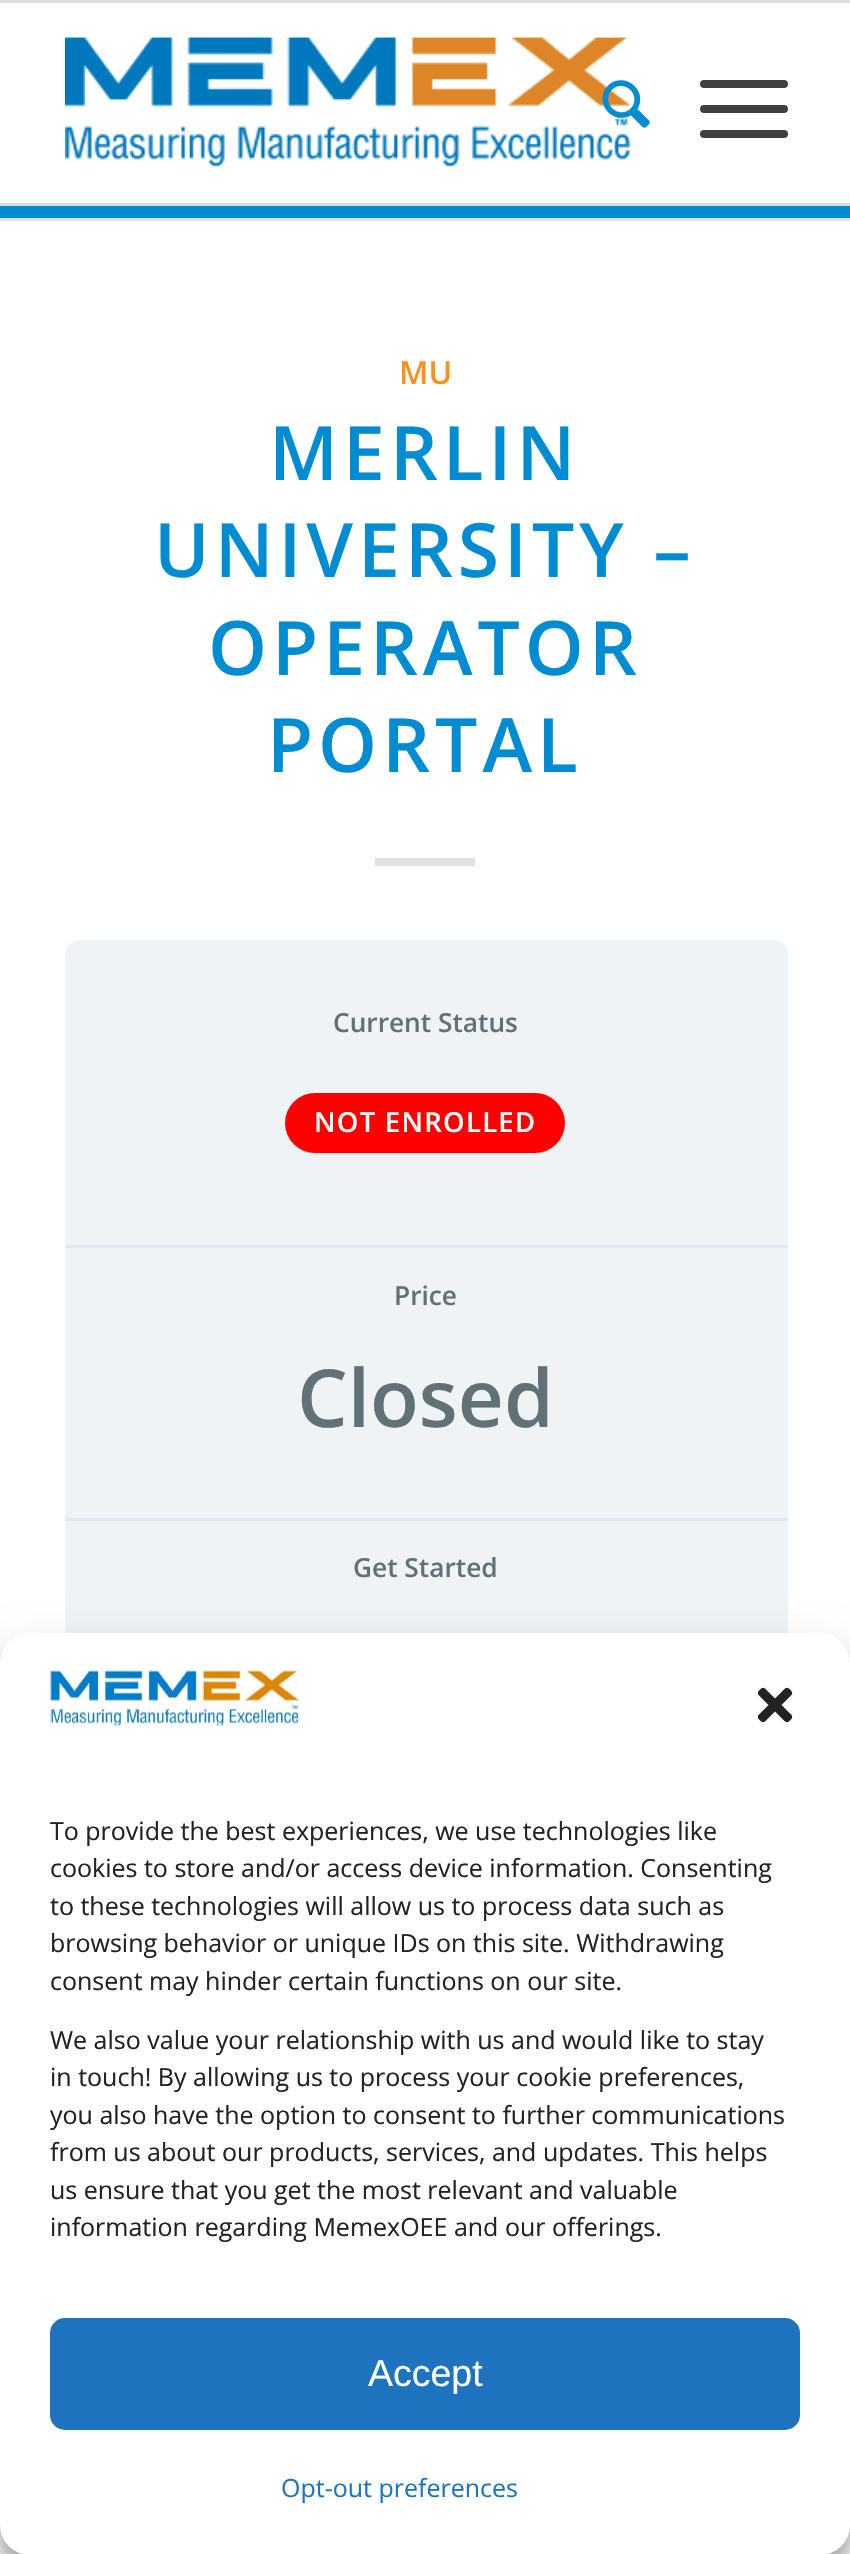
#include "include/core/SkBlurTypes.h"
#include "include/core/SkCanvas.h"
#include "include/core/SkData.h"
#include "include/core/SkFont.h"
#include "include/core/SkFontMgr.h"
#include "include/core/SkImage.h"
#include "include/core/SkMaskFilter.h"
#include "include/core/SkPaint.h"
#include "include/core/SkPathBuilder.h"
#include "include/core/SkTextBlob.h"
#include "include/effects/SkDashPathEffect.h"
#include "include/effects/SkGradientShader.h"
#include "include/utils/SkParsePath.h"

extern sk_sp<SkFontMgr> fontMgr;

static SkFont font(const char* family, int weight, float size, bool italic = false) {
    SkFontStyle style(weight, SkFontStyle::kNormal_Width,
        italic ? SkFontStyle::kItalic_Slant : SkFontStyle::kUpright_Slant);
    SkFont result(fontMgr->matchFamilyStyle(family, style), size);
    result.setSubpixel(true);
    return result;
}

static void drawLabel(SkCanvas* canvas, const char* s, float x, float y, const SkFont& font, SkColor color) {
    SkPaint ink(SkColor4f::FromColor(color));
    ink.setAntiAlias(true);
    canvas->drawString(s, x, y, font, ink);
}

static void drawTracked(SkCanvas* canvas, const char* s, float x, float y, const SkFont& font, const SkPaint& ink, float letter, float word) {
    std::vector<SkGlyphID> glyphs(font.countText(s, strlen(s), SkTextEncoding::kUTF8));
    std::vector<float> xs(glyphs.size());
    font.textToGlyphs(s, strlen(s), SkTextEncoding::kUTF8, glyphs);
    font.getXPos(glyphs, xs, x);
    float extra = 0;
    for (size_t i = 0; i < glyphs.size(); i++) {
        xs[i] += extra;
        extra += letter + word * (glyphs[i] == font.unicharToGlyph(' '));
    }
    canvas->drawTextBlob(SkTextBlob::MakeFromPosHGlyphs(glyphs, xs, y, font), 0, 0, ink);
}

static void fillRect(SkCanvas* canvas, float x, float y, float w, float h, SkColor color) {
    SkPaint ink(SkColor4f::FromColor(color));
    ink.setAntiAlias(true);
    canvas->drawRect(SkRect::MakeXYWH(x, y, w, h), ink);
}

static void fillRRect(SkCanvas* canvas, float x, float y, float w, float h, float radius, SkColor color) {
    SkPaint ink(SkColor4f::FromColor(color));
    ink.setAntiAlias(true);
    canvas->drawRoundRect(SkRect::MakeXYWH(x, y, w, h), radius, radius, ink);
}

static void drawPhoto(SkCanvas* canvas, const char* path, float x, float y, float w, float h) {
    auto image = SkImages::DeferredFromEncodedData(SkData::MakeFromFileName(path));
    canvas->drawImageRect(image, SkRect::MakeXYWH(x, y, w, h), SkSamplingOptions());
}

void draw(SkCanvas* canvas) {
    SkPaint paint;
    paint.setAntiAlias(true);
    canvas->clear(0xFFFFFFFF);
    fillRect(canvas, 0, 0, 850, 3, 0xFFDDDDDD);
    fillRect(canvas, 0, 203, 850, 3, 0xFFDDDDDD);
    drawPhoto(canvas, "assets/img1.png", 65, 37, 565, 130);
    drawPhoto(canvas, "assets/img2.png", 602, 80, 48, 48);
    fillRRect(canvas, 700, 105, 88, 8, 4, 0xFF404040);
    fillRRect(canvas, 700, 80, 88, 8, 4, 0xFF404040);
    fillRRect(canvas, 700, 130, 88, 8, 4, 0xFF404040);
    fillRect(canvas, 0, 206, 850, 12, 0xFF008CD2);
    fillRect(canvas, 0, 218, 850, 3, 0xFFE1E1E1);
    SkFont font1 = font("Open Sans", 600, 32);
    drawLabel(canvas, "MU", 399, 384, font1, 0xFFF7921E);
    SkFont font2 = font("Open Sans", 600, 75);
    paint.setColor(0xFF008CD2);
    drawTracked(canvas, "MERLIN", 269, 480, font2, paint, 5, 0);
    drawTracked(canvas, "UNIVERSITY –", 154, 577, font2, paint, 5, 0);
    drawTracked(canvas, "OPERATOR", 208, 675, font2, paint, 5, 0);
    drawTracked(canvas, "PORTAL", 267, 772, font2, paint, 5, 0);
    fillRect(canvas, 375, 858, 100, 8, 0xFFE1E1E1);
    fillRRect(canvas, 65, 940, 723, 885, 15, 0xFFF0F3F6);
    fillRect(canvas, 65, 1245, 723, 3, 0xFFE2E7ED);
    SkFont font3 = font("Open Sans", 600, 26.25f);
    drawLabel(canvas, "Current Status", 333, 1032, font3, 0xFF617175);
    fillRRect(canvas, 285, 1093, 280, 60, 30, 0xFFFF0000);
    SkFont font4 = font("Open Sans", 600, 27.5f);
    paint.setColor(0xFFFFFFFF);
    drawTracked(canvas, "NOT ENROLLED", 314, 1132, font4, paint, 1.25f, 0);
    fillRect(canvas, 65, 1518, 723, 3, 0xFFE2E7ED);
    drawLabel(canvas, "Price", 394, 1305, font3, 0xFF617175);
    SkFont font5 = font("Open Sans", 600, 80);
    drawLabel(canvas, "Closed", 297, 1427, font5, 0xFF617175);
    drawLabel(canvas, "Get Started", 353, 1577, font3, 0xFF617175);
    paint.setColor(0x3B000000);
    paint.setMaskFilter(SkMaskFilter::MakeBlur(kNormal_SkBlurStyle, 7.5f));
    canvas->drawRoundRect(SkRect::MakeXYWH(0, 1648, 850, 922), 30, 30, paint);
    paint.setMaskFilter(nullptr);
    paint.setColor(0x30000000);
    paint.setMaskFilter(SkMaskFilter::MakeBlur(kNormal_SkBlurStyle, 25));
    canvas->drawRoundRect(SkRect::MakeXYWH(0, 1658, 850, 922), 30, 30, paint);
    paint.setMaskFilter(nullptr);
    fillRRect(canvas, 0, 1633, 850, 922, 30, 0xFFFFFFFF);
    drawPhoto(canvas, "assets/img3.png", 50, 1669, 250, 57);
    drawPhoto(canvas, "assets/img4.png", 757, 1687, 36, 36);
    SkFont font6 = font("Open Sans", 400, 25);
    drawLabel(canvas, "To provide the best experiences, we use technologies like", 50, 1840, font6, 0xFF222222);
    drawLabel(canvas, "cookies to store and/or access device information. Consenting", 50, 1877, font6, 0xFF222222);
    drawLabel(canvas, "to these technologies will allow us to process data such as", 50, 1915, font6, 0xFF222222);
    drawLabel(canvas, "browsing behavior or unique IDs on this site. Withdrawing", 50, 1952, font6, 0xFF222222);
    drawLabel(canvas, "consent may hinder certain functions on our site.", 50, 1990, font6, 0xFF222222);
    drawLabel(canvas, "We also value your relationship with us and would like to stay", 50, 2049, font6, 0xFF222222);
    drawLabel(canvas, "in touch! By allowing us to process your cookie preferences,", 50, 2086, font6, 0xFF222222);
    drawLabel(canvas, "you also have the option to consent to further communications", 50, 2124, font6, 0xFF222222);
    drawLabel(canvas, "from us about our products, services, and updates. This helps", 50, 2161, font6, 0xFF222222);
    drawLabel(canvas, "us ensure that you get the most relevant and valuable", 50, 2199, font6, 0xFF222222);
    drawLabel(canvas, "information regarding MemexOEE and our offerings.", 50, 2236, font6, 0xFF222222);
    paint.setColor(0xFF1E73BE);
    canvas->drawRoundRect(SkRect::MakeXYWH(51.5f, 2319.5f, 747, 109), 13.5f, 13.5f, paint);
    paint.setStroke(true);
    paint.setStrokeWidth(3);
    canvas->drawRoundRect(SkRect::MakeXYWH(51.5f, 2319.5f, 747, 109), 13.5f, 13.5f, paint);
    SkFont font7 = font("Liberation Sans", 400, 37.5f);
    drawLabel(canvas, "Accept", 368, 2386, font7, 0xFFFFFFFF);
    drawLabel(canvas, "Opt-out preferences", 281, 2497, font6, 0xFF1E73BE);
}
